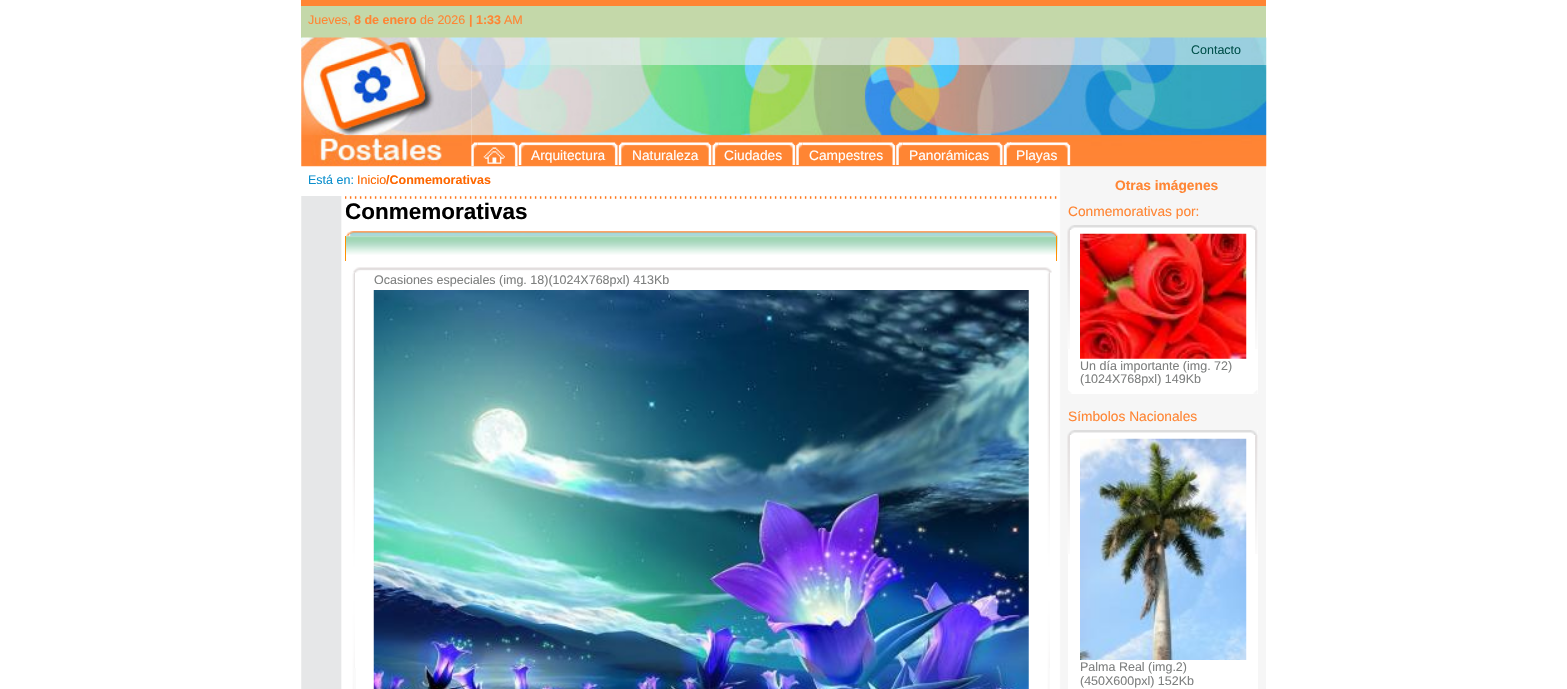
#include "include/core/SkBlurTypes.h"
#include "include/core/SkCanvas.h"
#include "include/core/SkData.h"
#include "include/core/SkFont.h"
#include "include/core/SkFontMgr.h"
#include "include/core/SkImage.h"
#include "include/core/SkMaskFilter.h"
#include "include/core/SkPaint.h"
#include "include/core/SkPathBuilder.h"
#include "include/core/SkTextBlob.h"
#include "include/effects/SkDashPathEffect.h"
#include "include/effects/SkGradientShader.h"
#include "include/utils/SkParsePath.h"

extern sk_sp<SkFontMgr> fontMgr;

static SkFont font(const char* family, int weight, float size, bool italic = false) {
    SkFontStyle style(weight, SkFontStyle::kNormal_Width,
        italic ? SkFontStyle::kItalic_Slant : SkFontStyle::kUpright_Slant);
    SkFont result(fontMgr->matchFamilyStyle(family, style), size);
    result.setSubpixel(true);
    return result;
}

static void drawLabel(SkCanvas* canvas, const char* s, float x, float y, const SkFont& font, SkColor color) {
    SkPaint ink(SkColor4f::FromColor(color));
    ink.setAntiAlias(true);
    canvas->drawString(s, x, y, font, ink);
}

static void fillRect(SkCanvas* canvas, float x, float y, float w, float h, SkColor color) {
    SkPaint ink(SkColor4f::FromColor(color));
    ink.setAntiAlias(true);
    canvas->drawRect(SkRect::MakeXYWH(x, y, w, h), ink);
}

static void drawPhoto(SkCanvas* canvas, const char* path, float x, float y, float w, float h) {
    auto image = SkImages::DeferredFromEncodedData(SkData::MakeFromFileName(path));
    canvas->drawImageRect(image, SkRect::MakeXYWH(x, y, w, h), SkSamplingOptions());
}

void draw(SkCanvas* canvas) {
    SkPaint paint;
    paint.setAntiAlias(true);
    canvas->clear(0xFFFFFFFF);
    fillRect(canvas, 301, 0, 965, 6, 0xFFFF8533);
    fillRect(canvas, 301, 6, 965, 32, 0xFFC4D8A9);
    SkFont font1 = font("Liberation Sans", 400, 12.5f);
    drawLabel(canvas, "Jueves,", 308, 24, font1, 0xFFFF8533);
    SkFont font2 = font("Liberation Sans", 700, 12.5f);
    drawLabel(canvas, "8 de enero", 354, 24, font2, 0xFFFF8533);
    drawLabel(canvas, "de 2026", 420, 24, font1, 0xFFFF8533);
    drawLabel(canvas, "| 1:33", 469, 24, font2, 0xFFFF8533);
    drawLabel(canvas, "AM", 504, 24, font1, 0xFFFF8533);
    drawPhoto(canvas, "assets/img1.png", 301, 37, 966, 28);
    drawLabel(canvas, "Contacto", 1191, 54, font1, 0xFF01524D);
    drawPhoto(canvas, "assets/img19.png", 301, 166, 965, 523);
    fillRect(canvas, 301, 166, 41, 30, 0xFFFFFFFF);
    drawPhoto(canvas, "assets/img2.png", 301, 65, 171, 102);
    drawPhoto(canvas, "assets/img3.png", 471, 65, 796, 102);
    drawPhoto(canvas, "assets/img4.png", 471, 142, 7, 25);
    drawPhoto(canvas, "assets/img5.png", 477, 142, 41, 25);
    drawPhoto(canvas, "assets/img6.png", 483, 147, 22, 17);
    drawPhoto(canvas, "assets/img7.png", 518, 142, 7, 23);
    drawPhoto(canvas, "assets/img8.png", 525, 142, 93, 23);
    SkFont font3 = font("Liberation Sans", 400, 13.75f);
    drawLabel(canvas, "Arquitectura", 531, 160, font3, 0xFFFFFFFF);
    drawPhoto(canvas, "assets/img9.png", 618, 142, 7, 23);
    drawPhoto(canvas, "assets/img10.png", 625, 142, 87, 23);
    drawLabel(canvas, "Naturaleza", 632, 160, font3, 0xFFFFFFFF);
    drawPhoto(canvas, "assets/img11.png", 712, 142, 7, 23);
    drawPhoto(canvas, "assets/img12.png", 718, 142, 78, 23);
    drawLabel(canvas, "Ciudades", 724, 160, font3, 0xFFFFFFFF);
    drawPhoto(canvas, "assets/img13.png", 796, 142, 7, 23);
    drawPhoto(canvas, "assets/img14.png", 802, 142, 94, 23);
    drawLabel(canvas, "Campestres", 809, 160, font3, 0xFFFFFFFF);
    drawPhoto(canvas, "assets/img15.png", 896, 142, 7, 23);
    drawPhoto(canvas, "assets/img16.png", 902, 142, 101, 23);
    drawLabel(canvas, "Panorámicas", 909, 160, font3, 0xFFFFFFFF);
    drawPhoto(canvas, "assets/img17.png", 1003, 142, 9, 23);
    drawPhoto(canvas, "assets/img18.png", 1010, 142, 61, 23);
    drawLabel(canvas, "Playas", 1016, 160, font3, 0xFFFFFFFF);
    drawLabel(canvas, "Está en:", 308, 184, font1, 0xFF0B8FCD);
    drawLabel(canvas, "Inicio", 357, 184, font1, 0xFFFE6700);
    drawLabel(canvas, "/Conmemorativas", 386, 184, font2, 0xFFFE6700);
    drawPhoto(canvas, "assets/img20.png", 345, 196, 712, 3);
    SkFont font4 = font("Liberation Sans", 700, 22.5f);
    drawLabel(canvas, "Conmemorativas", 345, 219, font4, 0xFF000000);
    drawPhoto(canvas, "assets/img21.png", 346, 231, 712, 6);
    drawPhoto(canvas, "assets/img22.png", 346, 236, 712, 19);
    fillRect(canvas, 1056, 236, 1, 25, 0xFFFF9001);
    fillRect(canvas, 345, 236, 1, 25, 0xFFFF9001);
    drawPhoto(canvas, "assets/img23.png", 353, 267, 699, 6);
    drawPhoto(canvas, "assets/img24.png", 352, 272, 3, 417);
    drawLabel(canvas, "Ocasiones especiales (img. 18)(1024X768pxl) 413Kb", 374, 284, font1, 0xFF7E807F);
    drawPhoto(canvas, "assets/img25.png", 373, 290, 656, 399);
    drawPhoto(canvas, "assets/img26.png", 1047, 272, 3, 417);
    fillRect(canvas, 354, 668, 2, 21, 0xFFFAFAFA);
    fillRect(canvas, 1049, 668, 1, 21, 0xFFFAFAFA);
    SkFont font5 = font("Liberation Sans", 700, 13.75f);
    drawLabel(canvas, "Otras imágenes", 1115, 190, font5, 0xFFFF8533);
    drawLabel(canvas, "Conmemorativas por:", 1068, 216, font3, 0xFFFF8533);
    fillRect(canvas, 1068, 225, 190, 169, 0xFFFFFFFF);
    drawPhoto(canvas, "assets/img27.png", 1067, 225, 191, 5);
    drawPhoto(canvas, "assets/img28.png", 1067, 230, 3, 119);
    drawPhoto(canvas, "assets/img29.png", 1255, 230, 3, 119);
    drawPhoto(canvas, "assets/img30.png", 1080, 233, 167, 126);
    drawLabel(canvas, "Un día importante (img. 72)", 1080, 370, font1, 0xFF7E807F);
    drawLabel(canvas, "(1024X768pxl) 149Kb", 1080, 383, font1, 0xFF7E807F);
    drawPhoto(canvas, "assets/img31.png", 1068, 390, 190, 4);
    drawLabel(canvas, "Símbolos Nacionales", 1068, 421, font3, 0xFFFF8533);
    fillRect(canvas, 1068, 430, 190, 259, 0xFFFFFFFF);
    drawPhoto(canvas, "assets/img27.png", 1067, 430, 191, 5);
    drawPhoto(canvas, "assets/img28.png", 1067, 435, 3, 119);
    drawPhoto(canvas, "assets/img29.png", 1255, 435, 3, 119);
    drawPhoto(canvas, "assets/img32.png", 1080, 438, 167, 222);
    drawLabel(canvas, "Palma Real (img.2)", 1080, 671, font1, 0xFF7E807F);
    drawLabel(canvas, "(450X600pxl) 152Kb", 1080, 685, font1, 0xFF7E807F);
}
